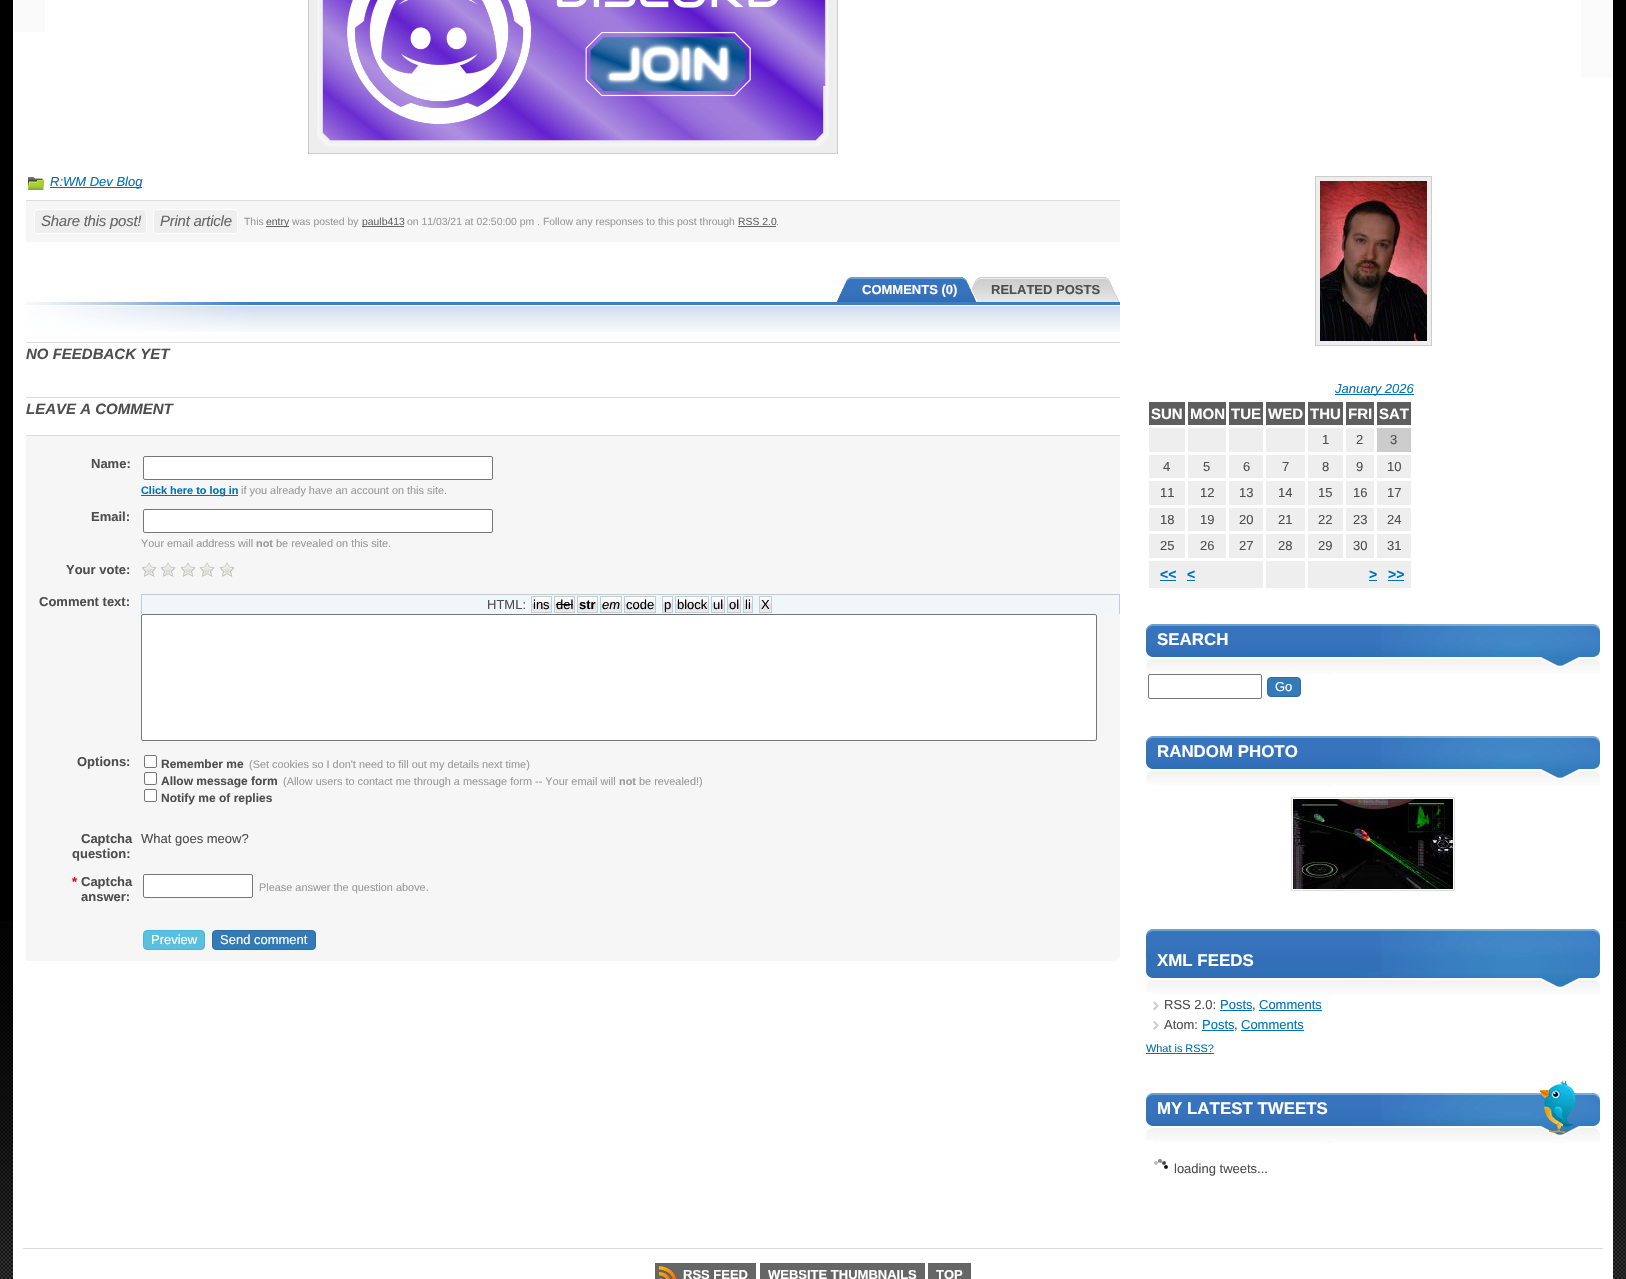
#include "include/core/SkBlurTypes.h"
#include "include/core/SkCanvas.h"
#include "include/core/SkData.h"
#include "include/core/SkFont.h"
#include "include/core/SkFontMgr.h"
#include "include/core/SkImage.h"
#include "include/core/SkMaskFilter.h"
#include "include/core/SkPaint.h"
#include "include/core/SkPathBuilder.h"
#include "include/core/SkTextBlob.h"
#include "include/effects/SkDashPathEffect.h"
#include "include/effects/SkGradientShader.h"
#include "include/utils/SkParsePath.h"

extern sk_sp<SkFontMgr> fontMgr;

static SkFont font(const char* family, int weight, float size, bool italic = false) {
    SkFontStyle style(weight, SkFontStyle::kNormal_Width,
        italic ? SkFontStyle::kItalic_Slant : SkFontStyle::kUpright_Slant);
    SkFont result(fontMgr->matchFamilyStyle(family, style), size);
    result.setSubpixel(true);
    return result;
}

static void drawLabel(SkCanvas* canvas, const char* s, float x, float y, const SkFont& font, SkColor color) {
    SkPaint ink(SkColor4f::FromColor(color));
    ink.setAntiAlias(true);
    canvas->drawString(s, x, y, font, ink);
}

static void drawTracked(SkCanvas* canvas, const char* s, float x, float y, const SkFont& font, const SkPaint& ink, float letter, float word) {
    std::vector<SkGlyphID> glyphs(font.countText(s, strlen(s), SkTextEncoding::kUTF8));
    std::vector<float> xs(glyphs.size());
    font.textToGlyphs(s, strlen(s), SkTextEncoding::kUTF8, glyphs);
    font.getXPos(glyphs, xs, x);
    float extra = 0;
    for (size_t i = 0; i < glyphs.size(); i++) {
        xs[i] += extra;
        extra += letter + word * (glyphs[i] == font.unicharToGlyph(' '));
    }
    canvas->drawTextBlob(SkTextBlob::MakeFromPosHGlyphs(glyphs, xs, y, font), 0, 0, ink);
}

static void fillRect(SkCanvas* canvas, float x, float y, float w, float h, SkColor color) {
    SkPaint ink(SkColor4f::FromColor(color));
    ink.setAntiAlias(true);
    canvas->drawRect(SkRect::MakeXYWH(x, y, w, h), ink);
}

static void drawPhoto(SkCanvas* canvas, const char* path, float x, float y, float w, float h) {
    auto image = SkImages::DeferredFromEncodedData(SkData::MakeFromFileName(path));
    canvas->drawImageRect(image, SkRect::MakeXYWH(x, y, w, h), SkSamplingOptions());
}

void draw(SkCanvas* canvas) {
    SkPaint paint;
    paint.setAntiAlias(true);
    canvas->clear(0xFF000000);
    drawPhoto(canvas, "assets/img1.png", 0, 921, 1626, 358);
    fillRect(canvas, 13, 0, 1600, 1279, 0xFFFFFFFF);
    fillRect(canvas, 1581, 0, 32, 78, 0xFFFBFBFB);
    fillRect(canvas, 14, 0, 31, 32, 0xFFFAFAFA);
    paint.setColor(0xFFEEEEEE);
    canvas->drawRect(SkRect::MakeXYWH(308.5f, -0.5f, 529, 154), paint);
    paint.setStroke(true);
    paint.setStrokeWidth(1);
    paint.setColor(0xFFCCCCCC);
    canvas->drawRect(SkRect::MakeXYWH(308.5f, -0.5f, 529, 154), paint);
    drawPhoto(canvas, "assets/img2.png", 317, 0, 512, 147);
    drawPhoto(canvas, "assets/img3.png", 28, 177, 16, 13);
    fillRect(canvas, 50, 187, 92, 1, 0xFF0071BB);
    SkFont font1 = font("Liberation Sans", 400, 13, true);
    drawLabel(canvas, "R:WM Dev Blog", 50, 186, font1, 0xFF0071BB);
    fillRect(canvas, 26, 201, 1094, 41, 0xFFF6F6F6);
    fillRect(canvas, 26, 200, 1094, 1, 0xFFDDDDDD);
    paint.setStroke(false);
    paint.setColor(0xFFEEEEEE);
    canvas->drawRoundRect(SkRect::MakeXYWH(34.5f, 209.5f, 112, 24), 3.5f, 3.5f, paint);
    paint.setStroke(true);
    paint.setColor(0xFFFFFFFF);
    canvas->drawRoundRect(SkRect::MakeXYWH(34.5f, 209.5f, 112, 24), 3.5f, 3.5f, paint);
    SkFont font2 = font("Liberation Sans", 400, 15, true);
    paint.setStroke(false);
    paint.setColor(0xFF666666);
    drawTracked(canvas, "Share this post!", 41, 226, font2, paint, -0.25f, 0);
    paint.setColor(0xFFEEEEEE);
    canvas->drawRoundRect(SkRect::MakeXYWH(153.5f, 209.5f, 84, 24), 3.5f, 3.5f, paint);
    paint.setStroke(true);
    paint.setColor(0xFFFFFFFF);
    canvas->drawRoundRect(SkRect::MakeXYWH(153.5f, 209.5f, 84, 24), 3.5f, 3.5f, paint);
    paint.setStroke(false);
    paint.setColor(0xFF666666);
    drawTracked(canvas, "Print article", 160, 226, font2, paint, -0.25f, 0);
    SkFont font3 = font("Liberation Sans", 400, 10.4f);
    drawLabel(canvas, "This", 244, 225, font3, 0xFF999999);
    fillRect(canvas, 266, 226, 23, 1, 0xFF666666);
    drawLabel(canvas, "entry", 266, 225, font3, 0xFF666666);
    drawLabel(canvas, "was posted by", 292, 225, font3, 0xFF999999);
    fillRect(canvas, 362, 226, 42, 1, 0xFF666666);
    drawLabel(canvas, "paulb413", 362, 225, font3, 0xFF666666);
    drawLabel(canvas, "on 11/03/21 at 02:50:00 pm . Follow any responses to this post through", 407, 225, font3, 0xFF999999);
    drawLabel(canvas, "RSS 2.0", 738, 225, font3, 0xFF666666);
    fillRect(canvas, 738, 226, 38, 1, 0xFF666666);
    drawLabel(canvas, ".", 776, 225, font3, 0xFF999999);
    drawPhoto(canvas, "assets/img4.png", 26, 302, 1094, 30);
    drawPhoto(canvas, "assets/img8.png", 971, 277, 133, 25);
    drawPhoto(canvas, "assets/img5.png", 961, 277, 16, 25);
    drawPhoto(canvas, "assets/img6.png", 836, 277, 125, 25);
    SkFont font4 = font("Liberation Sans", 700, 13);
    drawLabel(canvas, "COMMENTS (0)", 862, 294, font4, 0xFFFFFFFF);
    drawPhoto(canvas, "assets/img7.png", 1104, 277, 16, 25);
    drawLabel(canvas, "RELATED POSTS", 991, 294, font4, 0xFF4E4E4E);
    fillRect(canvas, 26, 342, 1094, 1, 0xFFDDDDDD);
    SkFont font5 = font("Liberation Sans", 700, 15, true);
    drawLabel(canvas, "NO FEEDBACK YET", 26, 359, font5, 0xFF4E4E4E);
    fillRect(canvas, 26, 397, 1094, 1, 0xFFDDDDDD);
    drawLabel(canvas, "LEAVE A COMMENT", 26, 414, font5, 0xFF4E4E4E);
    fillRect(canvas, 26, 436, 1094, 525, 0xFFF6F6F6);
    drawPhoto(canvas, "assets/img9.png", 1116, 957, 4, 4);
    fillRect(canvas, 26, 435, 1094, 1, 0xFFDDDDDD);
    drawLabel(canvas, "Name:", 91, 468, font4, 0xFF4E4E4E);
    paint.setColor(0xFFFFFFFF);
    canvas->drawRoundRect(SkRect::MakeXYWH(143.5f, 456.5f, 349, 23), 1.5f, 1.5f, paint);
    paint.setStroke(true);
    paint.setColor(0xFF767676);
    canvas->drawRoundRect(SkRect::MakeXYWH(143.5f, 456.5f, 349, 23), 1.5f, 1.5f, paint);
    fillRect(canvas, 141, 495, 97, 1, 0xFF0071BB);
    SkFont font6 = font("Liberation Sans", 700, 10.9f);
    drawLabel(canvas, "Click here to log in", 141, 494, font6, 0xFF0071BB);
    SkFont font7 = font("Liberation Sans", 400, 10.9f);
    drawLabel(canvas, "if you already have an account on this site.", 241, 494, font7, 0xFF999999);
    drawLabel(canvas, "Email:", 91, 521, font4, 0xFF4E4E4E);
    paint.setStroke(false);
    paint.setColor(0xFFFFFFFF);
    canvas->drawRoundRect(SkRect::MakeXYWH(143.5f, 509.5f, 349, 23), 1.5f, 1.5f, paint);
    paint.setStroke(true);
    paint.setColor(0xFF767676);
    canvas->drawRoundRect(SkRect::MakeXYWH(143.5f, 509.5f, 349, 23), 1.5f, 1.5f, paint);
    drawLabel(canvas, "Your email address will", 141, 547, font7, 0xFF999999);
    drawLabel(canvas, "not", 256, 547, font6, 0xFF999999);
    drawLabel(canvas, "be revealed on this site.", 276, 547, font7, 0xFF999999);
    drawLabel(canvas, "Your vote:", 66, 574, font4, 0xFF4E4E4E);
    drawPhoto(canvas, "assets/img10.png", 141, 562, 16, 15);
    drawPhoto(canvas, "assets/img10.png", 160, 562, 16, 15);
    drawPhoto(canvas, "assets/img10.png", 180, 562, 16, 15);
    drawPhoto(canvas, "assets/img10.png", 199, 562, 16, 15);
    drawPhoto(canvas, "assets/img10.png", 219, 562, 16, 15);
    drawLabel(canvas, "Comment text:", 39, 606, font4, 0xFF4E4E4E);
    fillRect(canvas, 142, 595, 977, 19, 0xFFF1F6F8);
    fillRect(canvas, 141, 594, 979, 1, 0xFFBECDD6);
    fillRect(canvas, 1119, 594, 1, 20, 0xFFBECDD6);
    fillRect(canvas, 141, 594, 1, 20, 0xFFBECDD6);
    SkFont font8 = font("Liberation Sans", 400, 13);
    drawLabel(canvas, "HTML:", 487, 609, font8, 0xFF4E4E4E);
    fillRect(canvas, 532, 597, 19, 1, 0xFFFEFEFE);
    drawPhoto(canvas, "assets/img11.png", 532, 598, 19, 14);
    paint.setColor(0xFFBECDD6);
    canvas->drawRect(SkRect::MakeXYWH(531.5f, 596.5f, 20, 16), paint);
    drawLabel(canvas, "ins", 533, 609, font8, 0xFF000000);
    fillRect(canvas, 555, 597, 19, 1, 0xFFFEFEFE);
    drawPhoto(canvas, "assets/img11.png", 555, 598, 19, 14);
    canvas->drawRect(SkRect::MakeXYWH(554.5f, 596.5f, 20, 16), paint);
    drawLabel(canvas, "del", 556, 609, font8, 0xFF000000);
    fillRect(canvas, 556, 604, 17, 1, 0xFF000000);
    fillRect(canvas, 578, 597, 19, 1, 0xFFFEFEFE);
    drawPhoto(canvas, "assets/img11.png", 578, 598, 19, 14);
    canvas->drawRect(SkRect::MakeXYWH(577.5f, 596.5f, 20, 16), paint);
    drawLabel(canvas, "str", 579, 609, font4, 0xFF000000);
    fillRect(canvas, 601, 597, 20, 1, 0xFFFEFEFE);
    drawPhoto(canvas, "assets/img12.png", 601, 598, 20, 14);
    canvas->drawRect(SkRect::MakeXYWH(600.5f, 596.5f, 21, 16), paint);
    drawLabel(canvas, "em", 602, 609, font1, 0xFF000000);
    fillRect(canvas, 625, 597, 30, 1, 0xFFFEFEFE);
    drawPhoto(canvas, "assets/img13.png", 625, 598, 30, 14);
    canvas->drawRect(SkRect::MakeXYWH(624.5f, 596.5f, 31, 16), paint);
    drawLabel(canvas, "code", 626, 609, font8, 0xFF000000);
    fillRect(canvas, 663, 597, 9, 1, 0xFFFEFEFE);
    drawPhoto(canvas, "assets/img14.png", 663, 598, 9, 14);
    canvas->drawRect(SkRect::MakeXYWH(662.5f, 596.5f, 10, 16), paint);
    drawLabel(canvas, "p", 664, 609, font8, 0xFF000000);
    fillRect(canvas, 676, 597, 32, 1, 0xFFFEFEFE);
    drawPhoto(canvas, "assets/img15.png", 676, 598, 32, 14);
    canvas->drawRect(SkRect::MakeXYWH(675.5f, 596.5f, 33, 16), paint);
    drawLabel(canvas, "block", 677, 609, font8, 0xFF000000);
    fillRect(canvas, 712, 597, 12, 1, 0xFFFEFEFE);
    drawPhoto(canvas, "assets/img16.png", 712, 598, 12, 14);
    canvas->drawRect(SkRect::MakeXYWH(711.5f, 596.5f, 13, 16), paint);
    drawLabel(canvas, "ul", 713, 609, font8, 0xFF000000);
    fillRect(canvas, 728, 597, 12, 1, 0xFFFEFEFE);
    drawPhoto(canvas, "assets/img16.png", 728, 598, 12, 14);
    canvas->drawRect(SkRect::MakeXYWH(727.5f, 596.5f, 13, 16), paint);
    drawLabel(canvas, "ol", 729, 609, font8, 0xFF000000);
    fillRect(canvas, 744, 597, 8, 1, 0xFFFEFEFE);
    drawPhoto(canvas, "assets/img17.png", 744, 598, 8, 14);
    canvas->drawRect(SkRect::MakeXYWH(743.5f, 596.5f, 9, 16), paint);
    drawLabel(canvas, "li", 745, 609, font8, 0xFF000000);
    fillRect(canvas, 760, 597, 11, 1, 0xFFFEFEFE);
    drawPhoto(canvas, "assets/img18.png", 760, 598, 11, 14);
    canvas->drawRect(SkRect::MakeXYWH(759.5f, 596.5f, 12, 16), paint);
    drawLabel(canvas, "X", 761, 609, font8, 0xFF000000);
    paint.setStroke(false);
    paint.setColor(0xFFFFFFFF);
    canvas->drawRoundRect(SkRect::MakeXYWH(141.5f, 614.5f, 955, 126), 1.5f, 1.5f, paint);
    paint.setStroke(true);
    paint.setColor(0xFF767676);
    canvas->drawRoundRect(SkRect::MakeXYWH(141.5f, 614.5f, 955, 126), 1.5f, 1.5f, paint);
    drawLabel(canvas, "Options:", 77, 766, font4, 0xFF4E4E4E);
    paint.setStroke(false);
    paint.setColor(0xFFFFFFFF);
    canvas->drawRoundRect(SkRect::MakeXYWH(144.5f, 755.5f, 12, 12), 1.5f, 1.5f, paint);
    paint.setStroke(true);
    paint.setColor(0xFF767676);
    canvas->drawRoundRect(SkRect::MakeXYWH(144.5f, 755.5f, 12, 12), 1.5f, 1.5f, paint);
    SkFont font9 = font("Liberation Sans", 700, 12);
    drawLabel(canvas, "Remember me", 161, 768, font9, 0xFF4E4E4E);
    drawLabel(canvas, "(Set cookies so I don't need to fill out my details next time)", 249, 768, font7, 0xFF999999);
    paint.setStroke(false);
    paint.setColor(0xFFFFFFFF);
    canvas->drawRoundRect(SkRect::MakeXYWH(144.5f, 772.5f, 12, 12), 1.5f, 1.5f, paint);
    paint.setStroke(true);
    paint.setColor(0xFF767676);
    canvas->drawRoundRect(SkRect::MakeXYWH(144.5f, 772.5f, 12, 12), 1.5f, 1.5f, paint);
    drawLabel(canvas, "Allow message form", 161, 785, font9, 0xFF4E4E4E);
    drawLabel(canvas, "(Allow users to contact me through a message form -- Your email will", 283, 785, font7, 0xFF999999);
    drawLabel(canvas, "not", 619, 785, font6, 0xFF999999);
    drawLabel(canvas, "be revealed!)", 639, 785, font7, 0xFF999999);
    paint.setStroke(false);
    paint.setColor(0xFFFFFFFF);
    canvas->drawRoundRect(SkRect::MakeXYWH(144.5f, 789.5f, 12, 12), 1.5f, 1.5f, paint);
    paint.setStroke(true);
    paint.setColor(0xFF767676);
    canvas->drawRoundRect(SkRect::MakeXYWH(144.5f, 789.5f, 12, 12), 1.5f, 1.5f, paint);
    drawLabel(canvas, "Notify me of replies", 161, 802, font9, 0xFF4E4E4E);
    drawLabel(canvas, "Captcha", 81, 843, font4, 0xFF4E4E4E);
    drawLabel(canvas, "question:", 72, 858, font4, 0xFF4E4E4E);
    drawLabel(canvas, "What goes meow?", 141, 843, font8, 0xFF4E4E4E);
    drawLabel(canvas, "*", 72, 886, font4, 0xFFFF0000);
    drawLabel(canvas, "Captcha", 81, 886, font4, 0xFF4E4E4E);
    drawLabel(canvas, "answer:", 81, 901, font4, 0xFF4E4E4E);
    paint.setStroke(false);
    paint.setColor(0xFFFFFFFF);
    canvas->drawRoundRect(SkRect::MakeXYWH(143.5f, 874.5f, 109, 23), 1.5f, 1.5f, paint);
    paint.setStroke(true);
    paint.setColor(0xFF767676);
    canvas->drawRoundRect(SkRect::MakeXYWH(143.5f, 874.5f, 109, 23), 1.5f, 1.5f, paint);
    drawLabel(canvas, "Please answer the question above.", 259, 891, font7, 0xFF999999);
    paint.setStroke(false);
    paint.setColor(0xFF5BC0DE);
    canvas->drawRoundRect(SkRect::MakeXYWH(143.5f, 930.5f, 61, 19), 3.5f, 3.5f, paint);
    paint.setStroke(true);
    paint.setColor(0xFF46B8DA);
    canvas->drawRoundRect(SkRect::MakeXYWH(143.5f, 930.5f, 61, 19), 3.5f, 3.5f, paint);
    drawLabel(canvas, "Preview", 151, 944, font8, 0xFFFFFFFF);
    paint.setStroke(false);
    paint.setColor(0xFF337AB7);
    canvas->drawRoundRect(SkRect::MakeXYWH(212.5f, 930.5f, 103, 19), 3.5f, 3.5f, paint);
    paint.setStroke(true);
    paint.setColor(0xFF2E6DA4);
    canvas->drawRoundRect(SkRect::MakeXYWH(212.5f, 930.5f, 103, 19), 3.5f, 3.5f, paint);
    drawLabel(canvas, "Send comment", 220, 944, font8, 0xFFFFFFFF);
    paint.setStroke(false);
    paint.setColor(0xFFEEEEEE);
    canvas->drawRect(SkRect::MakeXYWH(1315.5f, 176.5f, 116, 169), paint);
    paint.setStroke(true);
    paint.setColor(0xFFCCCCCC);
    canvas->drawRect(SkRect::MakeXYWH(1315.5f, 176.5f, 116, 169), paint);
    drawPhoto(canvas, "assets/img19.png", 1320, 181, 107, 160);
    fillRect(canvas, 1335, 394, 79, 1, 0xFF0071BB);
    drawLabel(canvas, "January 2026", 1335, 393, font1, 0xFF0071BB);
    fillRect(canvas, 1149, 402, 36, 23, 0xFF5E5E5E);
    SkFont font10 = font("Liberation Sans", 700, 15);
    drawLabel(canvas, "SUN", 1151, 419, font10, 0xFFFFFFFF);
    fillRect(canvas, 1188, 402, 38, 23, 0xFF5E5E5E);
    drawLabel(canvas, "MON", 1190, 419, font10, 0xFFFFFFFF);
    fillRect(canvas, 1229, 402, 34, 23, 0xFF5E5E5E);
    drawLabel(canvas, "TUE", 1231, 419, font10, 0xFFFFFFFF);
    fillRect(canvas, 1266, 402, 39, 23, 0xFF5E5E5E);
    drawLabel(canvas, "WED", 1268, 419, font10, 0xFFFFFFFF);
    fillRect(canvas, 1308, 402, 35, 23, 0xFF5E5E5E);
    drawLabel(canvas, "THU", 1310, 419, font10, 0xFFFFFFFF);
    fillRect(canvas, 1346, 402, 28, 23, 0xFF5E5E5E);
    drawLabel(canvas, "FRI", 1348, 419, font10, 0xFFFFFFFF);
    fillRect(canvas, 1377, 402, 34, 23, 0xFF5E5E5E);
    drawLabel(canvas, "SAT", 1379, 419, font10, 0xFFFFFFFF);
    fillRect(canvas, 1149, 428, 36, 24, 0xFFEEEEEE);
    fillRect(canvas, 1188, 428, 38, 24, 0xFFEEEEEE);
    fillRect(canvas, 1229, 428, 34, 24, 0xFFEEEEEE);
    fillRect(canvas, 1266, 428, 39, 24, 0xFFEEEEEE);
    fillRect(canvas, 1308, 428, 35, 24, 0xFFEEEEEE);
    drawLabel(canvas, "1", 1322, 444, font8, 0xFF4E4E4E);
    fillRect(canvas, 1346, 428, 28, 24, 0xFFEEEEEE);
    drawLabel(canvas, "2", 1356, 444, font8, 0xFF4E4E4E);
    fillRect(canvas, 1377, 428, 34, 24, 0xFFCCCCCC);
    drawLabel(canvas, "3", 1390, 444, font8, 0xFF4E4E4E);
    fillRect(canvas, 1149, 455, 36, 23, 0xFFEEEEEE);
    drawLabel(canvas, "4", 1163, 471, font8, 0xFF4E4E4E);
    fillRect(canvas, 1188, 455, 38, 23, 0xFFEEEEEE);
    drawLabel(canvas, "5", 1203, 471, font8, 0xFF4E4E4E);
    fillRect(canvas, 1229, 455, 34, 23, 0xFFEEEEEE);
    drawLabel(canvas, "6", 1243, 471, font8, 0xFF4E4E4E);
    fillRect(canvas, 1266, 455, 39, 23, 0xFFEEEEEE);
    drawLabel(canvas, "7", 1282, 471, font8, 0xFF4E4E4E);
    fillRect(canvas, 1308, 455, 35, 23, 0xFFEEEEEE);
    drawLabel(canvas, "8", 1322, 471, font8, 0xFF4E4E4E);
    fillRect(canvas, 1346, 455, 28, 23, 0xFFEEEEEE);
    drawLabel(canvas, "9", 1356, 471, font8, 0xFF4E4E4E);
    fillRect(canvas, 1377, 455, 34, 23, 0xFFEEEEEE);
    drawLabel(canvas, "10", 1387, 471, font8, 0xFF4E4E4E);
    fillRect(canvas, 1149, 481, 36, 24, 0xFFEEEEEE);
    drawLabel(canvas, "11", 1160, 497, font8, 0xFF4E4E4E);
    fillRect(canvas, 1188, 481, 38, 24, 0xFFEEEEEE);
    drawLabel(canvas, "12", 1200, 497, font8, 0xFF4E4E4E);
    fillRect(canvas, 1229, 481, 34, 24, 0xFFEEEEEE);
    drawLabel(canvas, "13", 1239, 497, font8, 0xFF4E4E4E);
    fillRect(canvas, 1266, 481, 39, 24, 0xFFEEEEEE);
    drawLabel(canvas, "14", 1278, 497, font8, 0xFF4E4E4E);
    fillRect(canvas, 1308, 481, 35, 24, 0xFFEEEEEE);
    drawLabel(canvas, "15", 1318, 497, font8, 0xFF4E4E4E);
    fillRect(canvas, 1346, 481, 28, 24, 0xFFEEEEEE);
    drawLabel(canvas, "16", 1353, 497, font8, 0xFF4E4E4E);
    fillRect(canvas, 1377, 481, 34, 24, 0xFFEEEEEE);
    drawLabel(canvas, "17", 1387, 497, font8, 0xFF4E4E4E);
    fillRect(canvas, 1149, 508, 36, 23, 0xFFEEEEEE);
    drawLabel(canvas, "18", 1160, 524, font8, 0xFF4E4E4E);
    fillRect(canvas, 1188, 508, 38, 23, 0xFFEEEEEE);
    drawLabel(canvas, "19", 1200, 524, font8, 0xFF4E4E4E);
    fillRect(canvas, 1229, 508, 34, 23, 0xFFEEEEEE);
    drawLabel(canvas, "20", 1239, 524, font8, 0xFF4E4E4E);
    fillRect(canvas, 1266, 508, 39, 23, 0xFFEEEEEE);
    drawLabel(canvas, "21", 1278, 524, font8, 0xFF4E4E4E);
    fillRect(canvas, 1308, 508, 35, 23, 0xFFEEEEEE);
    drawLabel(canvas, "22", 1318, 524, font8, 0xFF4E4E4E);
    fillRect(canvas, 1346, 508, 28, 23, 0xFFEEEEEE);
    drawLabel(canvas, "23", 1353, 524, font8, 0xFF4E4E4E);
    fillRect(canvas, 1377, 508, 34, 23, 0xFFEEEEEE);
    drawLabel(canvas, "24", 1387, 524, font8, 0xFF4E4E4E);
    fillRect(canvas, 1149, 534, 36, 24, 0xFFEEEEEE);
    drawLabel(canvas, "25", 1160, 550, font8, 0xFF4E4E4E);
    fillRect(canvas, 1188, 534, 38, 24, 0xFFEEEEEE);
    drawLabel(canvas, "26", 1200, 550, font8, 0xFF4E4E4E);
    fillRect(canvas, 1229, 534, 34, 24, 0xFFEEEEEE);
    drawLabel(canvas, "27", 1239, 550, font8, 0xFF4E4E4E);
    fillRect(canvas, 1266, 534, 39, 24, 0xFFEEEEEE);
    drawLabel(canvas, "28", 1278, 550, font8, 0xFF4E4E4E);
    fillRect(canvas, 1308, 534, 35, 24, 0xFFEEEEEE);
    drawLabel(canvas, "29", 1318, 550, font8, 0xFF4E4E4E);
    fillRect(canvas, 1346, 534, 28, 24, 0xFFEEEEEE);
    drawLabel(canvas, "30", 1353, 550, font8, 0xFF4E4E4E);
    fillRect(canvas, 1377, 534, 34, 24, 0xFFEEEEEE);
    drawLabel(canvas, "31", 1387, 550, font8, 0xFF4E4E4E);
    fillRect(canvas, 1149, 561, 114, 27, 0xFFEEEEEE);
    SkFont font11 = font("Liberation Sans", 700, 14);
    drawLabel(canvas, "<<", 1160, 579, font11, 0xFF0071BB);
    fillRect(canvas, 1160, 580, 16, 1, 0xFF0071BB);
    drawLabel(canvas, "<", 1187, 579, font11, 0xFF0071BB);
    fillRect(canvas, 1187, 580, 8, 1, 0xFF0071BB);
    fillRect(canvas, 1266, 561, 39, 27, 0xFFEEEEEE);
    fillRect(canvas, 1308, 561, 103, 27, 0xFFEEEEEE);
    drawLabel(canvas, ">", 1369, 579, font11, 0xFF0071BB);
    fillRect(canvas, 1369, 580, 8, 1, 0xFF0071BB);
    drawLabel(canvas, ">>", 1388, 579, font11, 0xFF0071BB);
    fillRect(canvas, 1388, 580, 16, 1, 0xFF0071BB);
    drawPhoto(canvas, "assets/img20.png", 1146, 624, 235, 27);
    drawPhoto(canvas, "assets/img21.png", 1381, 624, 219, 27);
    SkFont font12 = font("Liberation Sans", 700, 16.9f);
    drawLabel(canvas, "SEARCH", 1157, 645, font12, 0xFFFFFFFF);
    drawPhoto(canvas, "assets/img22.png", 1146, 651, 7, 20);
    drawPhoto(canvas, "assets/img23.png", 1153, 651, 447, 23);
    paint.setColor(0xFF767676);
    canvas->drawRoundRect(SkRect::MakeXYWH(1148.5f, 674.5f, 113, 24), 1.5f, 1.5f, paint);
    paint.setStroke(false);
    paint.setColor(0xFF337AB7);
    canvas->drawRoundRect(SkRect::MakeXYWH(1267.5f, 677.5f, 33, 19), 3.5f, 3.5f, paint);
    paint.setStroke(true);
    paint.setColor(0xFF2E6DA4);
    canvas->drawRoundRect(SkRect::MakeXYWH(1267.5f, 677.5f, 33, 19), 3.5f, 3.5f, paint);
    drawLabel(canvas, "Go", 1275, 691, font8, 0xFFFFFFFF);
    drawPhoto(canvas, "assets/img20.png", 1146, 736, 235, 27);
    drawPhoto(canvas, "assets/img21.png", 1381, 736, 219, 27);
    drawLabel(canvas, "RANDOM PHOTO", 1157, 757, font12, 0xFFFFFFFF);
    drawPhoto(canvas, "assets/img22.png", 1146, 763, 7, 20);
    drawPhoto(canvas, "assets/img23.png", 1153, 763, 447, 23);
    paint.setColor(0xFFDDDDDD);
    canvas->drawRect(SkRect::MakeXYWH(1291.5f, 797.5f, 163, 93), paint);
    drawPhoto(canvas, "assets/img24.png", 1293, 799, 160, 90);
    drawPhoto(canvas, "assets/img25.png", 1146, 929, 235, 43);
    drawPhoto(canvas, "assets/img26.png", 1381, 929, 219, 43);
    drawLabel(canvas, "XML FEEDS", 1157, 966, font12, 0xFFFFFFFF);
    drawPhoto(canvas, "assets/img22.png", 1146, 972, 7, 20);
    drawPhoto(canvas, "assets/img23.png", 1153, 972, 447, 23);
    drawPhoto(canvas, "assets/img27.png", 1153, 1001, 6, 10);
    drawLabel(canvas, "RSS 2.0:", 1164, 1009, font8, 0xFF4E4E4E);
    drawLabel(canvas, "Posts", 1220, 1009, font8, 0xFF0071BB);
    fillRect(canvas, 1220, 1010, 32, 1, 0xFF0071BB);
    drawLabel(canvas, ",", 1252, 1009, font8, 0xFF4E4E4E);
    drawLabel(canvas, "Comments", 1259, 1009, font8, 0xFF0071BB);
    fillRect(canvas, 1259, 1010, 63, 1, 0xFF0071BB);
    drawPhoto(canvas, "assets/img28.png", 1153, 1020, 6, 10);
    drawLabel(canvas, "Atom:", 1164, 1029, font8, 0xFF4E4E4E);
    drawLabel(canvas, "Posts", 1202, 1029, font8, 0xFF0071BB);
    fillRect(canvas, 1202, 1030, 32, 1, 0xFF0071BB);
    drawLabel(canvas, ",", 1234, 1029, font8, 0xFF4E4E4E);
    drawLabel(canvas, "Comments", 1241, 1029, font8, 0xFF0071BB);
    fillRect(canvas, 1241, 1030, 63, 1, 0xFF0071BB);
    drawLabel(canvas, "What is RSS?", 1146, 1052, font7, 0xFF0071BB);
    fillRect(canvas, 1146, 1053, 68, 1, 0xFF0071BB);
    drawPhoto(canvas, "assets/img20.png", 1146, 1093, 235, 27);
    drawPhoto(canvas, "assets/img21.png", 1381, 1093, 219, 27);
    drawLabel(canvas, "MY LATEST TWEETS", 1157, 1114, font12, 0xFFFFFFFF);
    drawPhoto(canvas, "assets/img23.png", 1153, 1120, 447, 23);
    drawPhoto(canvas, "assets/img29.png", 1540, 1080, 36, 53);
    drawPhoto(canvas, "assets/img22.png", 1146, 1120, 7, 20);
    drawPhoto(canvas, "assets/img30.png", 1154, 1159, 14, 10);
    drawLabel(canvas, "loading tweets...", 1174, 1173, font8, 0xFF4E4E4E);
    fillRect(canvas, 23, 1248, 1580, 1, 0xFFDDDDDD);
    fillRect(canvas, 655, 1263, 101, 16, 0xFF666666);
    drawPhoto(canvas, "assets/img31.png", 658, 1266, 19, 13);
    drawLabel(canvas, "RSS FEED", 683, 1279, font4, 0xFFFFFFFF);
    fillRect(canvas, 760, 1263, 165, 16, 0xFF666666);
    drawLabel(canvas, "WEBSITE THUMBNAILS", 768, 1279, font4, 0xFFFFFFFF);
    fillRect(canvas, 928, 1263, 43, 16, 0xFF666666);
    drawLabel(canvas, "TOP", 936, 1279, font4, 0xFFFFFFFF);
}
